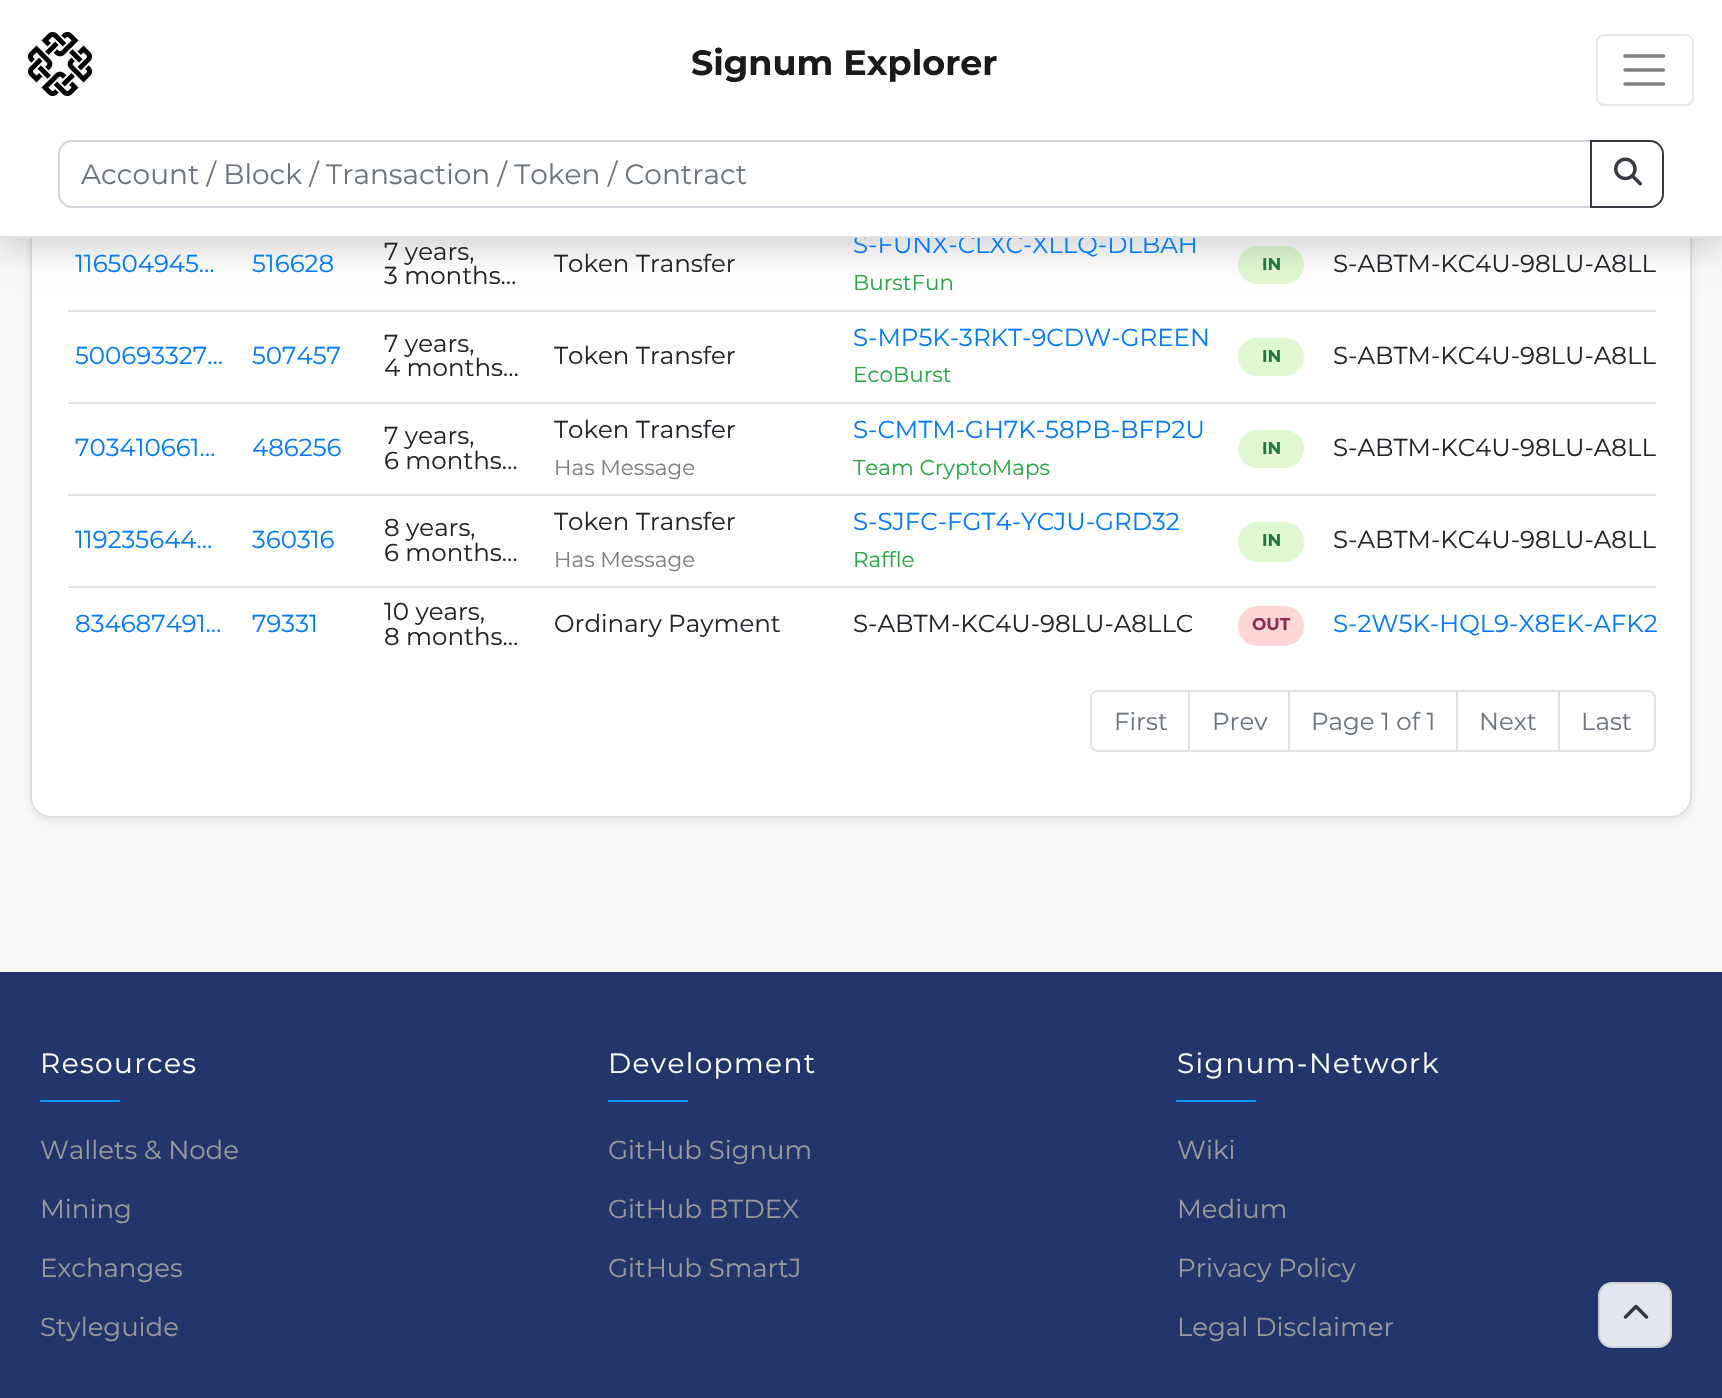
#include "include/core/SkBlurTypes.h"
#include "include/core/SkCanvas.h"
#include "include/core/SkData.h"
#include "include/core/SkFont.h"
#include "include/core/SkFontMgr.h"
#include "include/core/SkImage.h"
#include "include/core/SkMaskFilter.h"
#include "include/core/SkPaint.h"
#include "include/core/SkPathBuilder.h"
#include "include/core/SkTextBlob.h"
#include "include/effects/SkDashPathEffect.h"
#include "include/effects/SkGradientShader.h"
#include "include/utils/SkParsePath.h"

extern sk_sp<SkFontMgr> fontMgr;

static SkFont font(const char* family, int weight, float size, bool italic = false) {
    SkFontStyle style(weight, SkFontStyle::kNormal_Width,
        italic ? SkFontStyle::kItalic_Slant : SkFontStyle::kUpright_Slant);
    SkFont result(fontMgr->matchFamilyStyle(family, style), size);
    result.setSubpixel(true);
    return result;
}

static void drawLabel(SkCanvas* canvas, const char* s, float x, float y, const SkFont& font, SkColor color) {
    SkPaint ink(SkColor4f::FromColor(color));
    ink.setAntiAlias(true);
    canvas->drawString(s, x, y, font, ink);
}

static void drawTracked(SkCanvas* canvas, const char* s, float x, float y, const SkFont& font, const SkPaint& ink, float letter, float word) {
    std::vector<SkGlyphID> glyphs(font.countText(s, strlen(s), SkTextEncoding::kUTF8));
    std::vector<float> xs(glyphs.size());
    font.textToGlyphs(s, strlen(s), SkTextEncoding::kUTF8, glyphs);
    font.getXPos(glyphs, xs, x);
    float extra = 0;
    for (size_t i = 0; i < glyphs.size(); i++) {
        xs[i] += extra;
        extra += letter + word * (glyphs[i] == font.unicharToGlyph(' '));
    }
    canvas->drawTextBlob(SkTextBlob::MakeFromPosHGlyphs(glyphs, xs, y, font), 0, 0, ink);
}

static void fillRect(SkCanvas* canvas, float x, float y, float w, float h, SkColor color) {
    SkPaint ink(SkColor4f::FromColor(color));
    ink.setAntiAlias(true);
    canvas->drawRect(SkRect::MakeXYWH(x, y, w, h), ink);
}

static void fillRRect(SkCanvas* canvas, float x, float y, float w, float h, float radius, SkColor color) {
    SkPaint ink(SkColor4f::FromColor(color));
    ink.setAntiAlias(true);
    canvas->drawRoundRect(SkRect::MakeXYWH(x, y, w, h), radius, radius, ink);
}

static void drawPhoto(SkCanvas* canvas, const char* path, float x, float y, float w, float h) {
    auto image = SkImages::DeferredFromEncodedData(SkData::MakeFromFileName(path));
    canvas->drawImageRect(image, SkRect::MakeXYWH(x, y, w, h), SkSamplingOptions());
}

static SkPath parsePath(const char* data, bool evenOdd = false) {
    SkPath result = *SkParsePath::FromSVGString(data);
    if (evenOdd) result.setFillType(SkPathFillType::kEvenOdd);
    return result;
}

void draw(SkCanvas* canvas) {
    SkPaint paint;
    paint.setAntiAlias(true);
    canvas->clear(0xFFF8F9FA);
    paint.setColor(0x12000000);
    paint.setMaskFilter(SkMaskFilter::MakeBlur(kNormal_SkBlurStyle, 3.5f));
    canvas->drawRoundRect(SkRect::MakeXYWH(30, -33, 1662, 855), 22, 22, paint);
    paint.setMaskFilter(nullptr);
    fillRRect(canvas, 30, -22, 1662, 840, 22, 0xFFFFFFFF);
    paint.setStroke(true);
    paint.setStrokeWidth(2);
    paint.setColor(0x1F000000);
    canvas->drawRoundRect(SkRect::MakeXYWH(31, -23, 1660, 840), 21, 21, paint);
    fillRRect(canvas, 1238, 246, 66, 38, 19, 0xFFDEF9D2);
    paint.setStroke(false);
    paint.setColor(0x26000000);
    paint.setMaskFilter(SkMaskFilter::MakeBlur(kNormal_SkBlurStyle, 14));
    canvas->drawRect(SkRect::MakeXYWH(0, 14, 1722, 238), paint);
    paint.setMaskFilter(nullptr);
    SkFont font1 = font("Montserrat", 400, 24.5f);
    drawLabel(canvas, "S-FUNX-CLXC-XLLQ-DLBAH", 853, 253, font1, 0xFF007BFF);
    fillRect(canvas, 0, 0, 1722, 236, 0xFFFFFFFF);
    fillRect(canvas, 0, 236, 1722, 2, 0xFFDEE2E6);
    drawPhoto(canvas, "assets/img1.png", 28, 32, 64, 64);
    SkFont font2 = font("Montserrat", 700, 35);
    drawLabel(canvas, "Signum Explorer", 691, 75, font2, 0xFF1A1A1A);
    paint.setStroke(true);
    paint.setColor(0xFFE6E6E6);
    canvas->drawRoundRect(SkRect::MakeXYWH(1597, 35, 96, 70), 7, 7, paint);
    paint.setStrokeWidth(3.5f);
    paint.setStrokeCap(SkPaint::kRound_Cap);
    paint.setColor(0xFF808080);
    canvas->drawPath(parsePath("M1625 56H1663.5M1625 70H1663.5M1625 84H1663.5"), paint);
    paint.setStrokeWidth(2);
    paint.setStrokeCap(SkPaint::kButt_Cap);
    paint.setColor(0xFFCED4DA);
    canvas->drawPath(parsePath("M72 141H1591V207H72C65 207 59 201 59 194V154C59 147 65 141 72 141Z"), paint);
    SkFont font3 = font("Montserrat", 400, 28);
    drawLabel(canvas, "Account / Block / Transaction / Token / Contract", 81, 184, font3, 0xFF6C757D);
    paint.setColor(0xFF343A40);
    canvas->drawPath(parsePath("M1591 141H1650C1657 141 1663 147 1663 154V194C1663 201 1657 207 1650 207H1591Z"), paint);
    drawPhoto(canvas, "assets/img2.png", 1614, 157, 28, 29);
    drawLabel(canvas, "116504945…", 75, 272, font1, 0xFF007BFF);
    drawLabel(canvas, "516628", 252, 272, font1, 0xFF007BFF);
    drawLabel(canvas, "7 years,", 384, 260, font1, 0xFF212529);
    drawLabel(canvas, "3 months…", 384, 284, font1, 0xFF212529);
    drawLabel(canvas, "Token Transfer", 554, 272, font1, 0xFF212529);
    SkFont font4 = font("Montserrat", 400, 21.5f);
    drawLabel(canvas, "BurstFun", 853, 290, font4, 0xFF28A745);
    SkFont font5 = font("Montserrat", 700, 17);
    drawLabel(canvas, "IN", 1262, 270, font5, 0xFF237640);
    drawLabel(canvas, "S-ABTM-KC4U-98LU-A8LL", 1333, 272, font1, 0xFF212529);
    drawLabel(canvas, "500693327…", 75, 364, font1, 0xFF007BFF);
    drawLabel(canvas, "507457", 252, 364, font1, 0xFF007BFF);
    drawLabel(canvas, "7 years,", 384, 352, font1, 0xFF212529);
    drawLabel(canvas, "4 months…", 384, 376, font1, 0xFF212529);
    drawLabel(canvas, "Token Transfer", 554, 364, font1, 0xFF212529);
    drawLabel(canvas, "S-MP5K-3RKT-9CDW-GREEN", 853, 346, font1, 0xFF007BFF);
    drawLabel(canvas, "EcoBurst", 853, 382, font4, 0xFF28A745);
    fillRRect(canvas, 1238, 338, 66, 38, 19, 0xFFDEF9D2);
    drawLabel(canvas, "IN", 1262, 362, font5, 0xFF237640);
    fillRect(canvas, 68, 310, 1588, 2, 0xFFDEE2E6);
    drawLabel(canvas, "S-ABTM-KC4U-98LU-A8LL", 1333, 364, font1, 0xFF212529);
    drawLabel(canvas, "703410661…", 75, 456, font1, 0xFF007BFF);
    drawLabel(canvas, "486256", 252, 456, font1, 0xFF007BFF);
    drawLabel(canvas, "7 years,", 384, 444, font1, 0xFF212529);
    drawLabel(canvas, "6 months…", 384, 469, font1, 0xFF212529);
    drawLabel(canvas, "Token Transfer", 554, 438, font1, 0xFF212529);
    drawLabel(canvas, "Has Message", 554, 475, font4, 0xFF808080);
    drawLabel(canvas, "S-CMTM-GH7K-58PB-BFP2U", 853, 438, font1, 0xFF007BFF);
    drawLabel(canvas, "Team CryptoMaps", 853, 475, font4, 0xFF28A745);
    fillRRect(canvas, 1238, 430, 66, 38, 19, 0xFFDEF9D2);
    drawLabel(canvas, "IN", 1262, 454, font5, 0xFF237640);
    fillRect(canvas, 68, 402, 1588, 2, 0xFFDEE2E6);
    drawLabel(canvas, "S-ABTM-KC4U-98LU-A8LL", 1333, 456, font1, 0xFF212529);
    drawLabel(canvas, "119235644…", 75, 548, font1, 0xFF007BFF);
    drawLabel(canvas, "360316", 252, 548, font1, 0xFF007BFF);
    drawLabel(canvas, "8 years,", 384, 536, font1, 0xFF212529);
    drawLabel(canvas, "6 months…", 384, 561, font1, 0xFF212529);
    drawLabel(canvas, "Token Transfer", 554, 530, font1, 0xFF212529);
    drawLabel(canvas, "Has Message", 554, 567, font4, 0xFF808080);
    drawLabel(canvas, "S-SJFC-FGT4-YCJU-GRD32", 853, 530, font1, 0xFF007BFF);
    drawLabel(canvas, "Raffle", 853, 567, font4, 0xFF28A745);
    fillRRect(canvas, 1238, 522, 66, 40, 20, 0xFFDEF9D2);
    drawLabel(canvas, "IN", 1262, 546, font5, 0xFF237640);
    fillRect(canvas, 68, 494, 1588, 2, 0xFFDEE2E6);
    drawLabel(canvas, "S-ABTM-KC4U-98LU-A8LL", 1333, 548, font1, 0xFF212529);
    drawLabel(canvas, "834687491…", 75, 632, font1, 0xFF007BFF);
    drawLabel(canvas, "79331", 252, 632, font1, 0xFF007BFF);
    drawLabel(canvas, "10 years,", 384, 620, font1, 0xFF212529);
    drawLabel(canvas, "8 months…", 384, 645, font1, 0xFF212529);
    drawLabel(canvas, "Ordinary Payment", 554, 632, font1, 0xFF212529);
    drawLabel(canvas, "S-ABTM-KC4U-98LU-A8LLC", 853, 632, font1, 0xFF212529);
    fillRRect(canvas, 1238, 606, 66, 40, 20, 0xFFFFD6D6);
    drawLabel(canvas, "OUT", 1252, 630, font5, 0xFF8C2D50);
    fillRect(canvas, 68, 586, 1588, 2, 0xFFDEE2E6);
    drawLabel(canvas, "S-2W5K-HQL9-X8EK-AFK2", 1333, 632, font1, 0xFF007BFF);
    paint.setColor(0xFFDEE2E6);
    canvas->drawPath(parsePath("M1098 691H1189V751H1098C1094 751 1091 748 1091 744V698C1091 694 1094 691 1098 691Z"), paint);
    drawLabel(canvas, "First", 1114, 730, font1, 0xFF6C757D);
    canvas->drawRect(SkRect::MakeXYWH(1189, 691, 100, 60), paint);
    drawLabel(canvas, "Prev", 1212, 730, font1, 0xFF6C757D);
    canvas->drawRect(SkRect::MakeXYWH(1289, 691, 168, 60), paint);
    drawLabel(canvas, "Page 1 of 1", 1311, 730, font1, 0xFF6C757D);
    canvas->drawRect(SkRect::MakeXYWH(1457, 691, 102, 60), paint);
    drawLabel(canvas, "Next", 1479, 730, font1, 0xFF6C757D);
    paint.setStroke(false);
    paint.setColor(0xFFFFFFFF);
    canvas->drawPath(parsePath("M1559 691H1648C1652 691 1655 694 1655 698V744C1655 748 1652 751 1648 751H1559Z"), paint);
    paint.setStroke(true);
    paint.setColor(0xFFDEE2E6);
    canvas->drawPath(parsePath("M1559 691H1648C1652 691 1655 694 1655 698V744C1655 748 1652 751 1648 751H1559Z"), paint);
    drawLabel(canvas, "Last", 1581, 730, font1, 0xFF6C757D);
    fillRect(canvas, 0, 972, 1722, 426, 0xFF22366B);
    paint.setStroke(false);
    paint.setColor(0xFFFFFFFF);
    drawTracked(canvas, "Resources", 40, 1073, font3, paint, 1.4f, 0);
    fillRect(canvas, 40, 1100, 80, 2, 0xFF0099FF);
    SkFont font6 = font("Montserrat", 400, 26);
    drawLabel(canvas, "Wallets & Node", 40, 1159, font6, 0xFF999999);
    drawLabel(canvas, "Mining", 40, 1218, font6, 0xFF999999);
    drawLabel(canvas, "Exchanges", 40, 1277, font6, 0xFF999999);
    drawLabel(canvas, "Styleguide", 40, 1336, font6, 0xFF999999);
    drawTracked(canvas, "Development", 608, 1073, font3, paint, 1.4f, 0);
    fillRect(canvas, 608, 1100, 80, 2, 0xFF0099FF);
    drawLabel(canvas, "GitHub Signum", 608, 1159, font6, 0xFF999999);
    drawLabel(canvas, "GitHub BTDEX", 608, 1218, font6, 0xFF999999);
    drawLabel(canvas, "GitHub SmartJ", 608, 1277, font6, 0xFF999999);
    drawTracked(canvas, "Signum-Network", 1177, 1073, font3, paint, 1.4f, 0);
    fillRect(canvas, 1176, 1100, 80, 2, 0xFF0099FF);
    drawLabel(canvas, "Wiki", 1177, 1159, font6, 0xFF999999);
    drawLabel(canvas, "Medium", 1177, 1218, font6, 0xFF999999);
    drawLabel(canvas, "Privacy Policy", 1177, 1277, font6, 0xFF999999);
    drawLabel(canvas, "Legal Disclaimer", 1177, 1336, font6, 0xFF999999);
    paint.setColor(0xFFE3E6EC);
    canvas->drawRoundRect(SkRect::MakeXYWH(1599, 1283, 72, 64), 13, 13, paint);
    paint.setStroke(true);
    paint.setColor(0xFFCBD1DA);
    canvas->drawRoundRect(SkRect::MakeXYWH(1599, 1283, 72, 64), 13, 13, paint);
    drawPhoto(canvas, "assets/img3.png", 1623, 1304, 26, 15);
}
